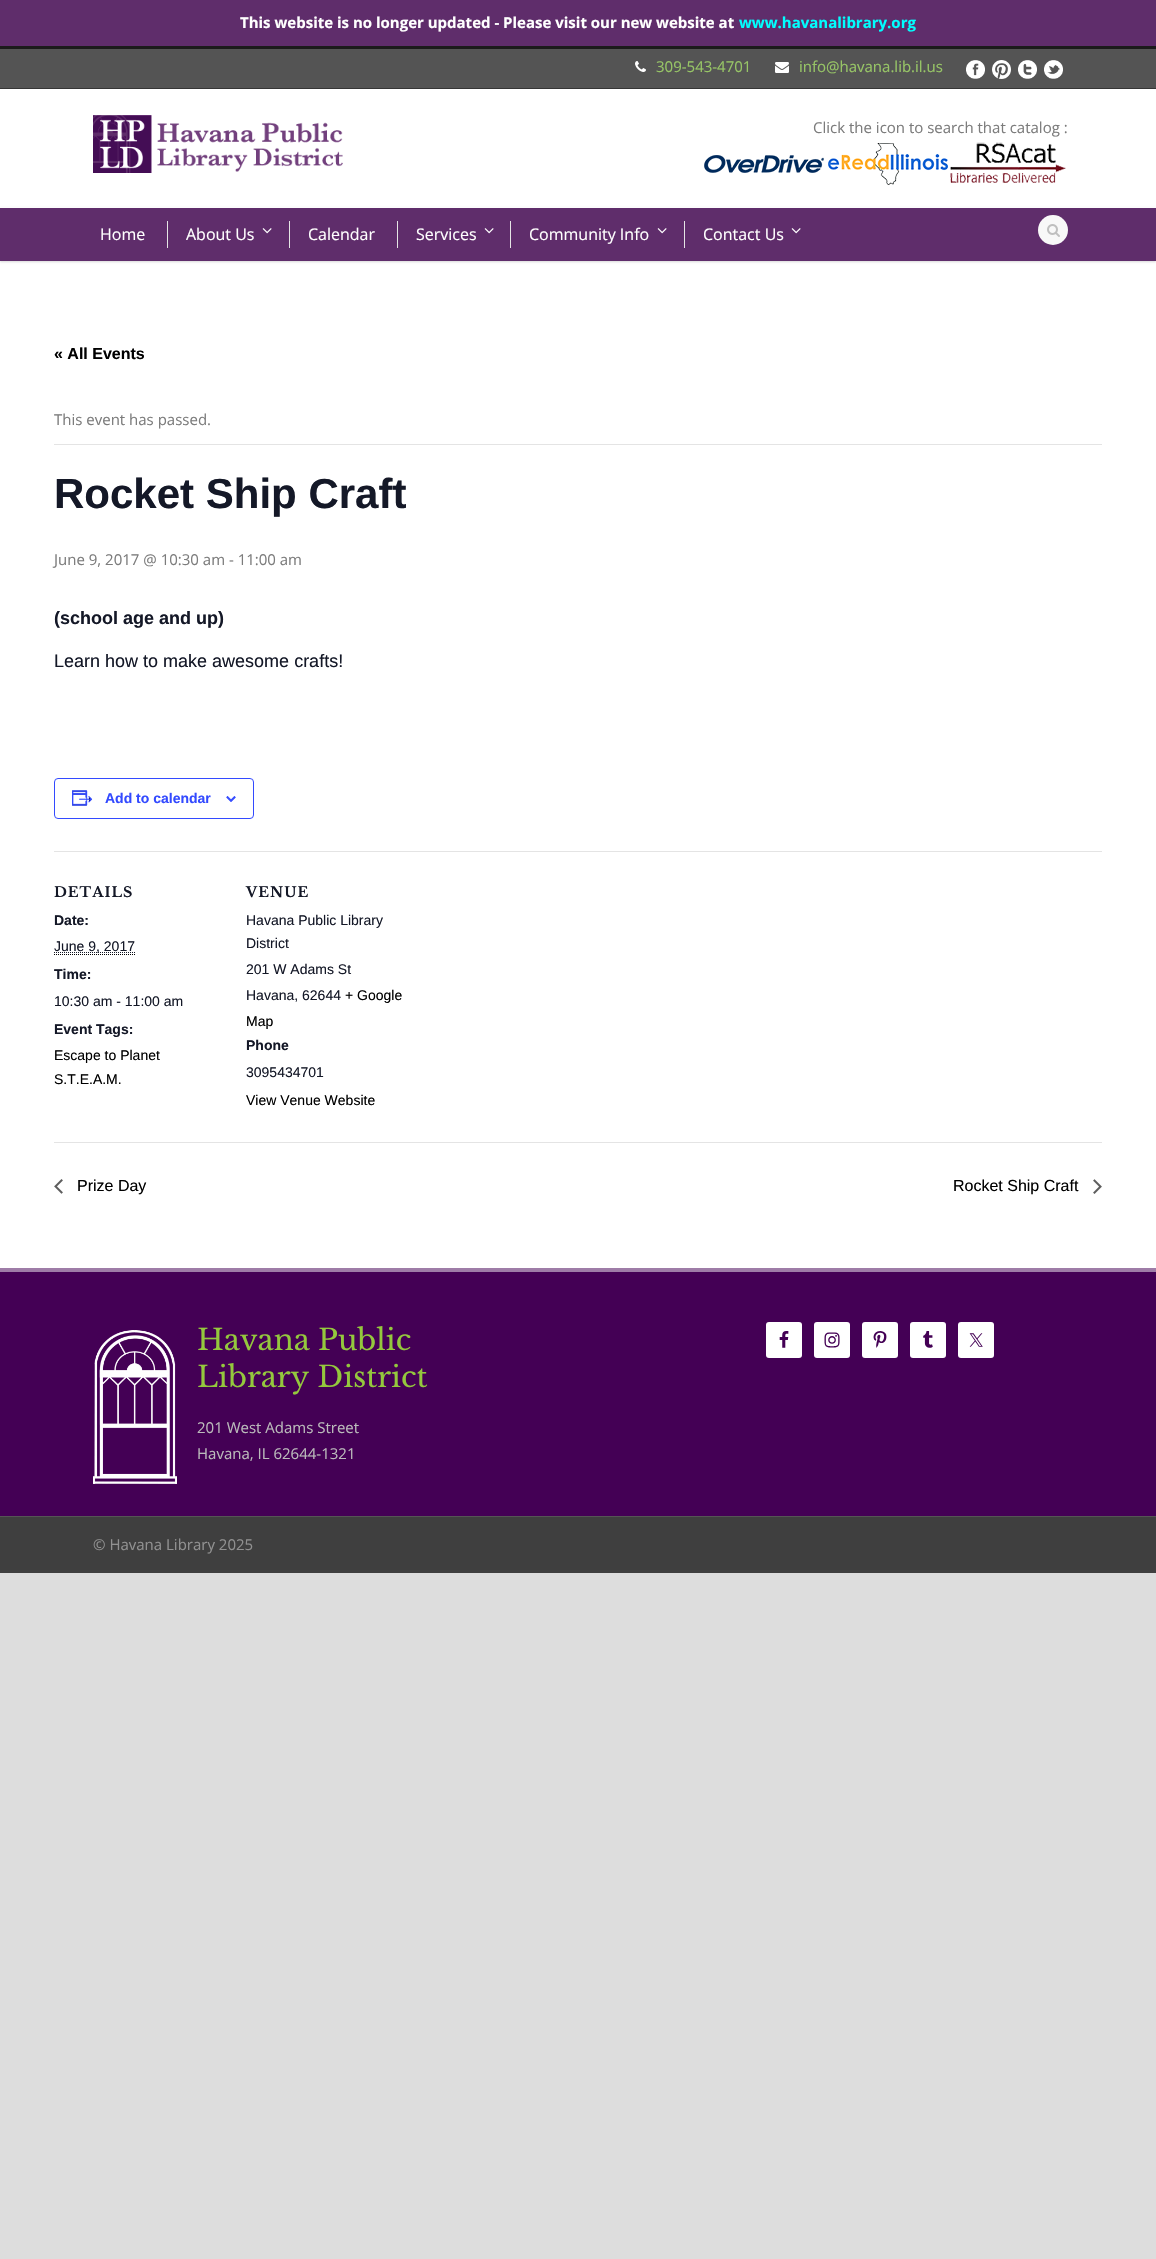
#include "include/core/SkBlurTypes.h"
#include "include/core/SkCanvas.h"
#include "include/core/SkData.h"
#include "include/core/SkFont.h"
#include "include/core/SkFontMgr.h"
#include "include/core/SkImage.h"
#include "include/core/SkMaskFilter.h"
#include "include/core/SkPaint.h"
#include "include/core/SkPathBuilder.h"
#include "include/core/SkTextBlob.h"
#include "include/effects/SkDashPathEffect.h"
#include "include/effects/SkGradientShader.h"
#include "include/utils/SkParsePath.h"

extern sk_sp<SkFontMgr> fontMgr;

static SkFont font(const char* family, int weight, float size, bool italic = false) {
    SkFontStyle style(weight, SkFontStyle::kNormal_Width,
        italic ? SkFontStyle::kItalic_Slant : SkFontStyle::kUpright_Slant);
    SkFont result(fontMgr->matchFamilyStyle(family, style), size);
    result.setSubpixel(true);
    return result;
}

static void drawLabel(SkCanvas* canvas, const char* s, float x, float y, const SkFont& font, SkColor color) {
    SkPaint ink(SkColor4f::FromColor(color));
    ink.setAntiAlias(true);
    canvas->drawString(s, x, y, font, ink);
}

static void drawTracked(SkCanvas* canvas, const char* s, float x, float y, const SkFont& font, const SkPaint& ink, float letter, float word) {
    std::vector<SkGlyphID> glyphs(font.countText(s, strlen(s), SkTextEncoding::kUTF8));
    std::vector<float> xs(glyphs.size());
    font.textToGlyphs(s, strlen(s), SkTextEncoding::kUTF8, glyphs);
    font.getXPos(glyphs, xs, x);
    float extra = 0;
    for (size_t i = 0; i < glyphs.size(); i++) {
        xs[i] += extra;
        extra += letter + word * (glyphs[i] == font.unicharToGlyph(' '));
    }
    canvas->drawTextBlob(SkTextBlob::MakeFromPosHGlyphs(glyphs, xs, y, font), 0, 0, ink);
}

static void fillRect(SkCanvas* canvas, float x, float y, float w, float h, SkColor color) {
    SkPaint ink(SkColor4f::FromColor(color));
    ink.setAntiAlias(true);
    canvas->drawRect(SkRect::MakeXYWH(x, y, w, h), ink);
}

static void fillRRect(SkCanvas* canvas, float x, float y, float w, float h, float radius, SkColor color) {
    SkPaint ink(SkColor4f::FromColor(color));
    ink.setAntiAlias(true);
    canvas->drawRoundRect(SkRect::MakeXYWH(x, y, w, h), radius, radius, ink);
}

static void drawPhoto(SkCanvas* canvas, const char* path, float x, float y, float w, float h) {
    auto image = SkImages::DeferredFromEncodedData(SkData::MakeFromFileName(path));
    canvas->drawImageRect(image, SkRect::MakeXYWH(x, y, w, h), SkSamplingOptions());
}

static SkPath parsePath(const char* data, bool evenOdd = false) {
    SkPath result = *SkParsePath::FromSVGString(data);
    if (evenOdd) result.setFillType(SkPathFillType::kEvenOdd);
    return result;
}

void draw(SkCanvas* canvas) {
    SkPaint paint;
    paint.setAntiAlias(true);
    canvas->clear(0xFFDDDDDD);
    fillRect(canvas, 0, 0, 1156, 46, 0xFF5F2D6B);
    SkFont font1 = font("Open Sans", 700, 15);
    drawLabel(canvas, "This website is no longer updated - Please visit our new website at", 240, 28, font1, 0xFFFFFFFF);
    drawLabel(canvas, "www.havanalibrary.org", 739, 28, font1, 0xFF00FFFF);
    fillRect(canvas, 0, 89, 1156, 1179, 0xFFFFFFFF);
    fillRect(canvas, 0, 49, 1156, 39, 0xFF545454);
    fillRect(canvas, 0, 46, 1156, 3, 0xFF1B1B1B);
    fillRect(canvas, 0, 88, 1156, 1, 0xFF353535);
    drawPhoto(canvas, "assets/img1.png", 635, 61, 11, 11);
    SkFont font2 = font("Open Sans", 400, 15);
    drawLabel(canvas, "309-543-4701", 656, 72, font2, 0xFF97C566);
    drawPhoto(canvas, "assets/img2.png", 775, 62, 14, 11);
    drawLabel(canvas, "info@havana.lib.il.us", 799, 72, font2, 0xFF97C566);
    drawPhoto(canvas, "assets/img3.png", 966, 60, 19, 19);
    drawPhoto(canvas, "assets/img4.png", 992, 60, 19, 19);
    drawPhoto(canvas, "assets/img5.png", 1018, 60, 19, 19);
    drawPhoto(canvas, "assets/img6.png", 1044, 60, 19, 19);
    drawPhoto(canvas, "assets/img7.png", 93, 115, 250, 58);
    drawLabel(canvas, "Click the icon to search that catalog :", 813, 133, font2, 0xFF7C7C7C);
    drawPhoto(canvas, "assets/img8.png", 704, 155, 120, 18);
    drawPhoto(canvas, "assets/img9.png", 828, 143, 120, 42);
    drawPhoto(canvas, "assets/img10.png", 950, 142, 116, 41);
    paint.setColor(0x26000000);
    paint.setMaskFilter(SkMaskFilter::MakeBlur(kNormal_SkBlurStyle, 1));
    canvas->drawRect(SkRect::MakeXYWH(0, 208, 1156, 54), paint);
    paint.setMaskFilter(nullptr);
    fillRect(canvas, 0, 208, 1156, 53, 0xFF5F2D6B);
    fillRect(canvas, 0, 207, 1156, 1, 0xFFFCFCFC);
    SkFont font3 = font("Open Sans", 400, 16);
    drawLabel(canvas, "Home", 100, 240, font3, 0xFFFFFFFF);
    fillRect(canvas, 167, 221, 1, 27, 0xFFE5E5E5);
    drawLabel(canvas, "About Us", 186, 240, font3, 0xFFFFFFFF);
    drawPhoto(canvas, "assets/img11.png", 262, 228, 10, 6);
    fillRect(canvas, 289, 221, 1, 27, 0xFFE5E5E5);
    drawLabel(canvas, "Calendar", 308, 240, font3, 0xFFFFFFFF);
    fillRect(canvas, 397, 221, 1, 27, 0xFFE5E5E5);
    drawLabel(canvas, "Services", 416, 240, font3, 0xFFFFFFFF);
    drawPhoto(canvas, "assets/img11.png", 484, 228, 10, 6);
    fillRect(canvas, 510, 221, 1, 27, 0xFFE5E5E5);
    drawLabel(canvas, "Community Info", 529, 240, font3, 0xFFFFFFFF);
    drawPhoto(canvas, "assets/img11.png", 657, 228, 10, 6);
    fillRect(canvas, 684, 221, 1, 27, 0xFFE5E5E5);
    drawLabel(canvas, "Contact Us", 703, 240, font3, 0xFFFFFFFF);
    drawPhoto(canvas, "assets/img11.png", 791, 228, 10, 6);
    paint.setColor(0xFFF8F8F8);
    canvas->drawCircle(1053, 230, 15, paint);
    drawPhoto(canvas, "assets/img12.png", 1047, 224, 13, 13);
    SkFont font4 = font("Liberation Sans", 700, 16);
    drawLabel(canvas, "« All Events", 54, 359, font4, 0xFF000000);
    fillRect(canvas, 54, 444, 1048, 1, 0xFFE4E4E4);
    drawLabel(canvas, "This event has passed.", 54, 425, font2, 0xFF7C7C7C);
    SkFont font5 = font("Liberation Sans", 700, 42);
    drawLabel(canvas, "Rocket Ship Craft", 54, 508, font5, 0xFF141827);
    drawLabel(canvas, "June 9, 2017 @ 10:30 am - 11:00 am", 54, 565, font2, 0xFF7C7C7C);
    SkFont font6 = font("Liberation Sans", 700, 18);
    drawLabel(canvas, "(school age and up)", 54, 624, font6, 0xFF141827);
    SkFont font7 = font("Liberation Sans", 400, 18);
    drawLabel(canvas, "Learn how to make awesome crafts!", 54, 667, font7, 0xFF141827);
    paint.setStroke(true);
    paint.setStrokeWidth(1);
    paint.setColor(0xFF334AFF);
    canvas->drawRoundRect(SkRect::MakeXYWH(54.5f, 778.5f, 199, 40), 3.5f, 3.5f, paint);
    drawPhoto(canvas, "assets/img13.png", 72, 790, 21, 16);
    SkFont font8 = font("Liberation Sans", 700, 14);
    drawLabel(canvas, "Add to calendar", 105, 803, font8, 0xFF334AFF);
    drawPhoto(canvas, "assets/img14.png", 226, 796, 10, 6);
    fillRect(canvas, 54, 851, 1048, 1, 0xFFE4E4E4);
    SkFont font9 = font("Libre Baskerville", 700, 14);
    paint.setStroke(false);
    paint.setColor(0xFF141827);
    drawTracked(canvas, "DETAILS", 54, 897, font9, paint, 1, 0);
    drawLabel(canvas, "Date:", 54, 925, font8, 0xFF141827);
    paint.setStroke(true);
    paint.setPathEffect(SkDashPathEffect::Make({{1, 1}}, 0));
    canvas->drawPath(parsePath("M54 952.5H135"), paint);
    paint.setPathEffect(nullptr);
    SkFont font10 = font("Liberation Sans", 400, 14);
    drawLabel(canvas, "June 9, 2017", 54, 951, font10, 0xFF141827);
    paint.setColor(0xFF000000);
    paint.setPathEffect(SkDashPathEffect::Make({{1, 1}}, 0));
    canvas->drawPath(parsePath("M54 954.5H135"), paint);
    paint.setPathEffect(nullptr);
    drawLabel(canvas, "Time:", 54, 979, font8, 0xFF141827);
    drawLabel(canvas, "10:30 am - 11:00 am", 54, 1006, font10, 0xFF141827);
    drawLabel(canvas, "Event Tags:", 54, 1034, font8, 0xFF141827);
    drawLabel(canvas, "Escape to Planet", 54, 1060, font10, 0xFF000000);
    drawLabel(canvas, "S.T.E.A.M.", 54, 1084, font10, 0xFF000000);
    paint.setStroke(false);
    paint.setColor(0xFF141827);
    drawTracked(canvas, "VENUE", 246, 897, font9, paint, 1, 0);
    drawLabel(canvas, "Havana Public Library", 246, 925, font10, 0xFF141827);
    drawLabel(canvas, "District", 246, 948, font10, 0xFF141827);
    drawLabel(canvas, "201 W Adams St", 246, 974, font10, 0xFF141827);
    drawLabel(canvas, "Havana, 62644", 246, 1000, font10, 0xFF141827);
    drawLabel(canvas, "+ Google", 345, 1000, font10, 0xFF000000);
    drawLabel(canvas, "Map", 246, 1026, font10, 0xFF000000);
    drawLabel(canvas, "Phone", 246, 1050, font8, 0xFF141827);
    drawLabel(canvas, "3095434701", 246, 1077, font10, 0xFF141827);
    drawLabel(canvas, "View Venue Website", 246, 1105, font10, 0xFF000000);
    fillRect(canvas, 54, 1142, 1048, 1, 0xFFE4E4E4);
    drawPhoto(canvas, "assets/img15.png", 54, 1179, 9, 15);
    SkFont font11 = font("Liberation Sans", 400, 16);
    drawLabel(canvas, "Prize Day", 77, 1191, font11, 0xFF000000);
    drawLabel(canvas, "Rocket Ship Craft", 953, 1191, font11, 0xFF000000);
    drawPhoto(canvas, "assets/img16.png", 1093, 1179, 9, 15);
    fillRect(canvas, 0, 1272, 1156, 244, 0xFF440055);
    fillRect(canvas, 0, 1268, 1156, 4, 0xFF9E7CA7);
    drawPhoto(canvas, "assets/img17.png", 93, 1330, 84, 154);
    SkFont font12 = font("Libre Baskerville", 400, 29);
    drawLabel(canvas, "Havana Public", 197, 1350, font12, 0xFF94C83D);
    drawLabel(canvas, "Library District", 197, 1387, font12, 0xFF94C83D);
    drawLabel(canvas, "201 West Adams Street", 197, 1433, font2, 0xFFBBBBBB);
    drawLabel(canvas, "Havana, IL 62644-1321", 197, 1459, font2, 0xFFBBBBBB);
    fillRRect(canvas, 766, 1322, 36, 36, 3, 0xFFFFFFFF);
    drawPhoto(canvas, "assets/img18.png", 779, 1331, 10, 17);
    fillRRect(canvas, 814, 1322, 36, 36, 3, 0xFFFFFFFF);
    drawPhoto(canvas, "assets/img19.png", 824, 1332, 16, 16);
    fillRRect(canvas, 862, 1322, 36, 36, 3, 0xFFFFFFFF);
    drawPhoto(canvas, "assets/img20.png", 873, 1331, 14, 17);
    fillRRect(canvas, 910, 1322, 36, 36, 3, 0xFFFFFFFF);
    drawPhoto(canvas, "assets/img21.png", 923, 1331, 10, 17);
    fillRRect(canvas, 958, 1322, 36, 36, 3, 0xFFFFFFFF);
    drawPhoto(canvas, "assets/img22.png", 969, 1333, 14, 14);
    fillRect(canvas, 0, 1517, 1156, 56, 0xFF3F3F3F);
    fillRect(canvas, 0, 1516, 1156, 1, 0xFF555555);
    drawLabel(canvas, "© Havana Library 2025", 93, 1550, font2, 0xFF919191);
}
